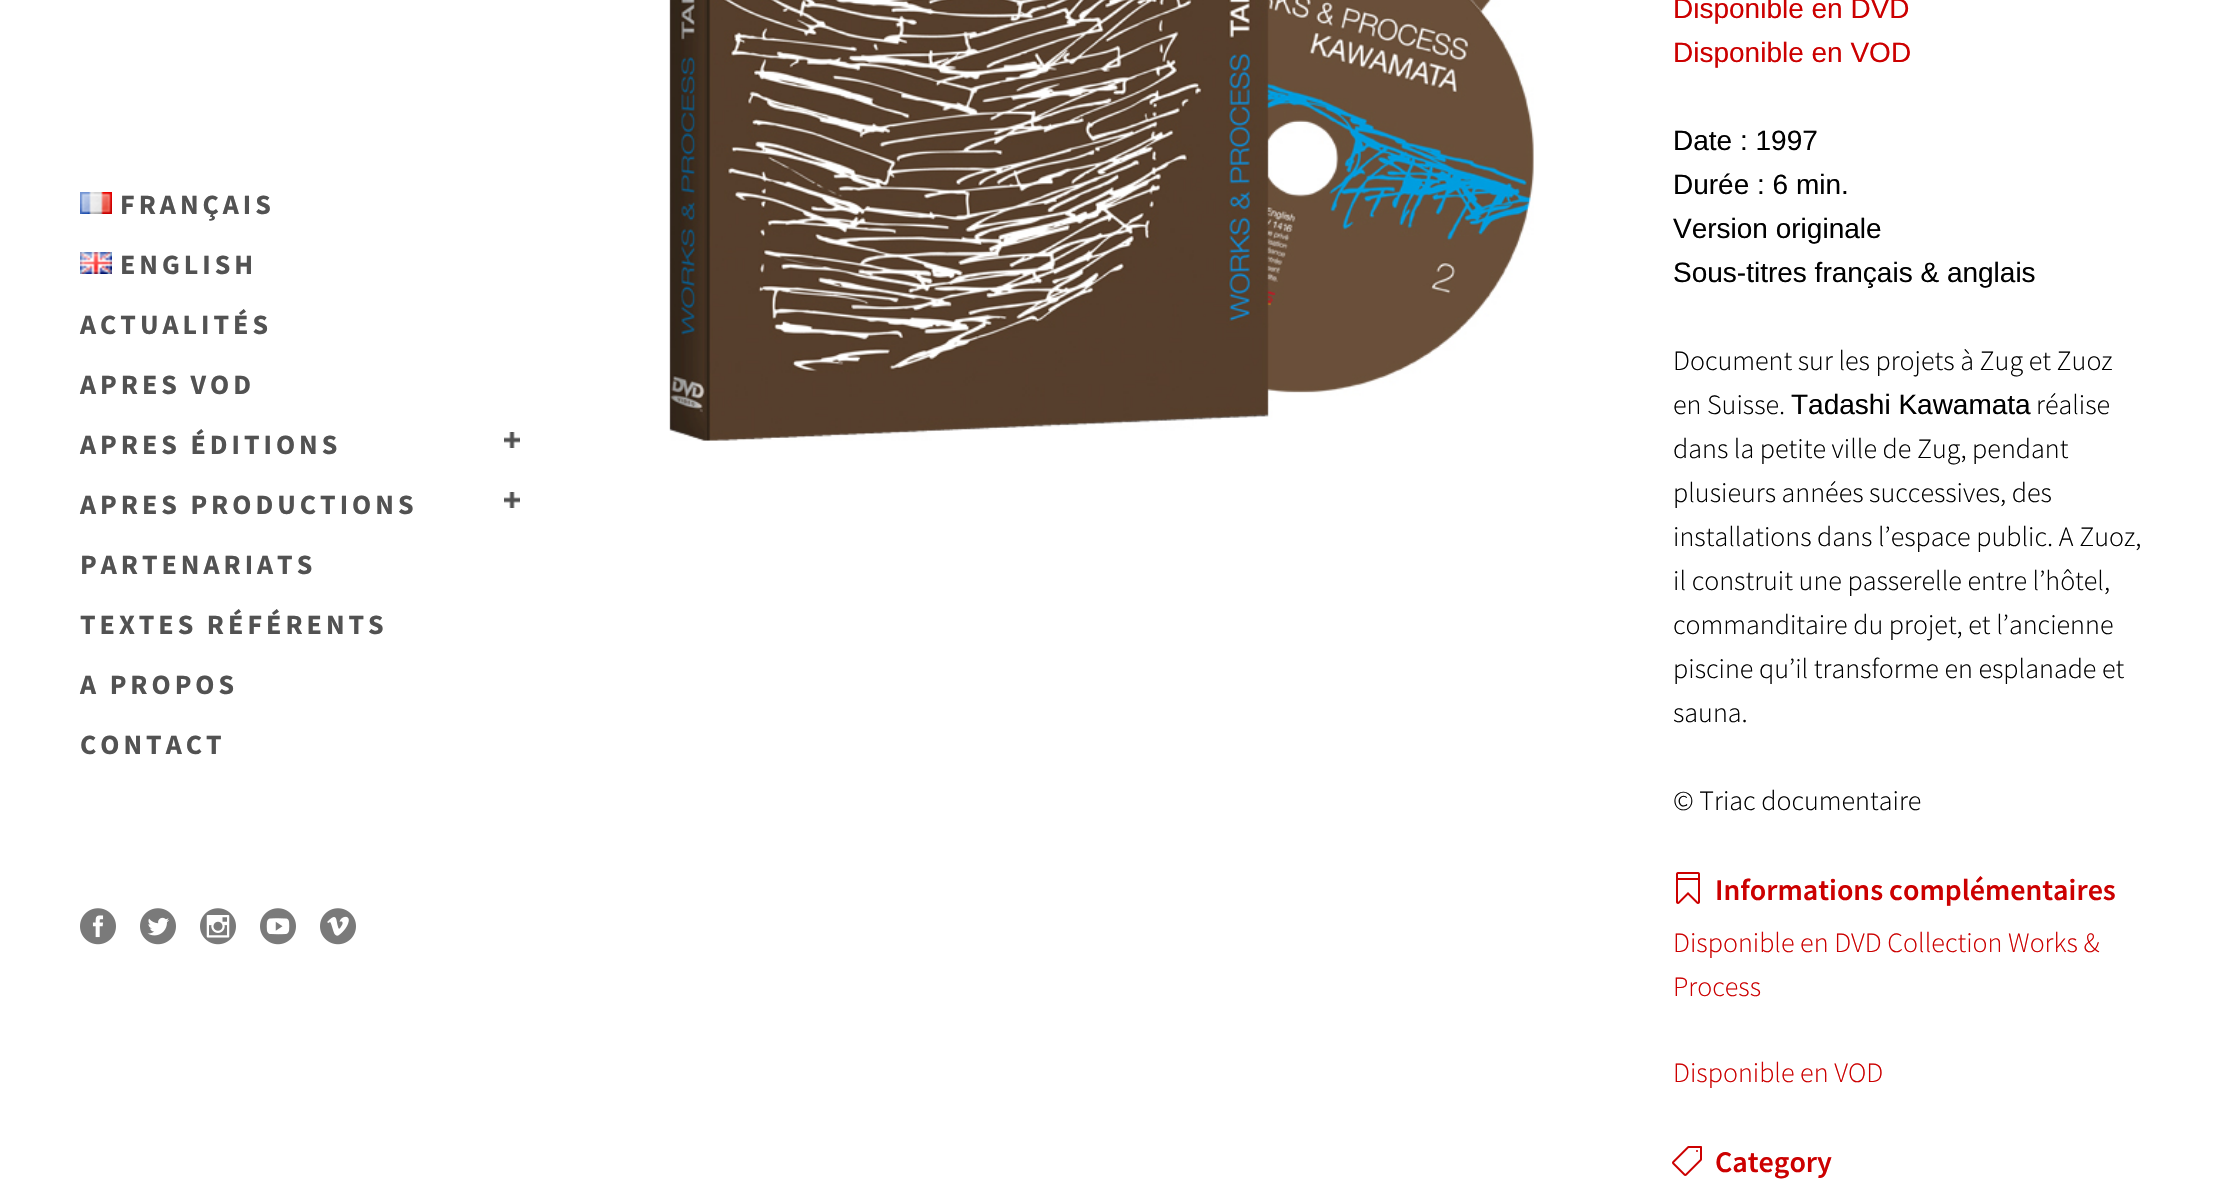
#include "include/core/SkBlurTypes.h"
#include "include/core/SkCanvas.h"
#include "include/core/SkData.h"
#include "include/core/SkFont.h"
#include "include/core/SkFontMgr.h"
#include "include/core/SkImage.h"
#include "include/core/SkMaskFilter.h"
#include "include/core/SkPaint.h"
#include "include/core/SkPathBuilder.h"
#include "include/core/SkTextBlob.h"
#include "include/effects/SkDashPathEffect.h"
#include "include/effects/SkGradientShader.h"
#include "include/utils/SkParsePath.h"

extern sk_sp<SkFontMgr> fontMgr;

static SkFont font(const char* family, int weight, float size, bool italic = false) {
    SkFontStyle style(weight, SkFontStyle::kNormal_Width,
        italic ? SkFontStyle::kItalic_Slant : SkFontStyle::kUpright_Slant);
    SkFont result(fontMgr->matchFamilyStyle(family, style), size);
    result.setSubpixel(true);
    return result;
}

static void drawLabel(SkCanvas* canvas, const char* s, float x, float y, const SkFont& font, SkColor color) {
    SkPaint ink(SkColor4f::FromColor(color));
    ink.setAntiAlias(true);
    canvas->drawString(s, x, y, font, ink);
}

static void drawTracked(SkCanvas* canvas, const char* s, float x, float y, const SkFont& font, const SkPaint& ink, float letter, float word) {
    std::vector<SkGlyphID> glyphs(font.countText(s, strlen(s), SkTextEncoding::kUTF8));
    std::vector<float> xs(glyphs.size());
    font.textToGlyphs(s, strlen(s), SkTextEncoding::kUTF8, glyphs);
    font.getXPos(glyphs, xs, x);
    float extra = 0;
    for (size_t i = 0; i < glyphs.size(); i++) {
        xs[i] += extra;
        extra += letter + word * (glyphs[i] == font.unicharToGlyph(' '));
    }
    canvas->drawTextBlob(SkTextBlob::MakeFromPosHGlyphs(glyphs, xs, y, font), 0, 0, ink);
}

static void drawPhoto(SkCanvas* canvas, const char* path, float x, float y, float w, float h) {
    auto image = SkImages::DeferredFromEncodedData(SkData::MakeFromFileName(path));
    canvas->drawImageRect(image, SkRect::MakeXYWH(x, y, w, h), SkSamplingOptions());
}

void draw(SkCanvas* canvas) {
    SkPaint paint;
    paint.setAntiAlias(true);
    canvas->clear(0xFFFFFFFF);
    drawPhoto(canvas, "assets/img1.png", 80, 192, 32, 22);
    SkFont font1 = font("Source Sans Pro", 700, 28);
    paint.setColor(0xFF525252);
    drawTracked(canvas, "FRANÇAIS", 120, 214, font1, paint, 4, 0);
    drawPhoto(canvas, "assets/img2.png", 80, 252, 32, 22);
    drawTracked(canvas, "ENGLISH", 120, 274, font1, paint, 4, 0);
    drawTracked(canvas, "ACTUALITÉS", 80, 334, font1, paint, 4, 0);
    drawTracked(canvas, "APRES VOD", 80, 394, font1, paint, 4, 0);
    drawTracked(canvas, "APRES ÉDITIONS", 80, 454, font1, paint, 4, 0);
    drawPhoto(canvas, "assets/img3.png", 504, 432, 16, 16);
    drawTracked(canvas, "APRES PRODUCTIONS", 80, 514, font1, paint, 4, 0);
    drawPhoto(canvas, "assets/img3.png", 504, 492, 16, 16);
    drawTracked(canvas, "PARTENARIATS", 80, 574, font1, paint, 4, 0);
    drawTracked(canvas, "TEXTES RÉFÉRENTS", 80, 634, font1, paint, 4, 0);
    drawTracked(canvas, "A PROPOS", 80, 694, font1, paint, 4, 0);
    drawTracked(canvas, "CONTACT", 80, 754, font1, paint, 4, 0);
    drawPhoto(canvas, "assets/img4.png", 80, 908, 36, 37);
    drawPhoto(canvas, "assets/img5.png", 140, 908, 36, 37);
    drawPhoto(canvas, "assets/img6.png", 200, 908, 36, 37);
    drawPhoto(canvas, "assets/img7.png", 260, 908, 36, 37);
    drawPhoto(canvas, "assets/img8.png", 320, 908, 36, 37);
    drawPhoto(canvas, "assets/img9.png", 669, 0, 865, 441);
    SkFont font2 = font("Liberation Sans", 400, 28);
    drawLabel(canvas, "Disponible en DVD", 1673, 18, font2, 0xFFCC0000);
    drawLabel(canvas, "Disponible en VOD", 1673, 62, font2, 0xFFCC0000);
    drawLabel(canvas, "Date : 1997", 1673, 150, font2, 0xFF000000);
    drawLabel(canvas, "Durée : 6 min.", 1673, 194, font2, 0xFF000000);
    drawLabel(canvas, "Version originale", 1673, 238, font2, 0xFF000000);
    drawLabel(canvas, "Sous-titres français & anglais", 1673, 282, font2, 0xFF000000);
    SkFont font3 = font("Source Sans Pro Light", 300, 28);
    drawLabel(canvas, "Document sur les projets à Zug et Zuoz", 1673, 370, font3, 0xFF000000);
    drawLabel(canvas, "en Suisse.", 1673, 414, font3, 0xFF000000);
    drawLabel(canvas, "Tadashi Kawamata", 1791, 414, font2, 0xFF000000);
    drawLabel(canvas, "réalise", 2036, 414, font3, 0xFF000000);
    drawLabel(canvas, "dans la petite ville de Zug, pendant", 1673, 458, font3, 0xFF000000);
    drawLabel(canvas, "plusieurs années successives, des", 1673, 502, font3, 0xFF000000);
    drawLabel(canvas, "installations dans l’espace public. A Zuoz,", 1673, 546, font3, 0xFF000000);
    drawLabel(canvas, "il construit une passerelle entre l’hôtel,", 1673, 590, font3, 0xFF000000);
    drawLabel(canvas, "commanditaire du projet, et l’ancienne", 1673, 634, font3, 0xFF000000);
    drawLabel(canvas, "piscine qu’il transforme en esplanade et", 1673, 678, font3, 0xFF000000);
    drawLabel(canvas, "sauna.", 1673, 722, font3, 0xFF000000);
    drawLabel(canvas, "© Triac documentaire", 1673, 810, font3, 0xFF000000);
    drawPhoto(canvas, "assets/img10.png", 1676, 872, 24, 32);
    SkFont font4 = font("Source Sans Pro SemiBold", 600, 30);
    drawLabel(canvas, "Informations complémentaires", 1715, 900, font4, 0xFFCC0000);
    drawLabel(canvas, "Disponible en DVD Collection Works &", 1673, 952, font3, 0xFFCC0000);
    drawLabel(canvas, "Process", 1673, 996, font3, 0xFFCC0000);
    drawLabel(canvas, "Disponible en VOD", 1673, 1082, font3, 0xFFCC0000);
    drawPhoto(canvas, "assets/img11.png", 1672, 1146, 30, 30);
    drawLabel(canvas, "Category", 1715, 1172, font4, 0xFFCC0000);
}
